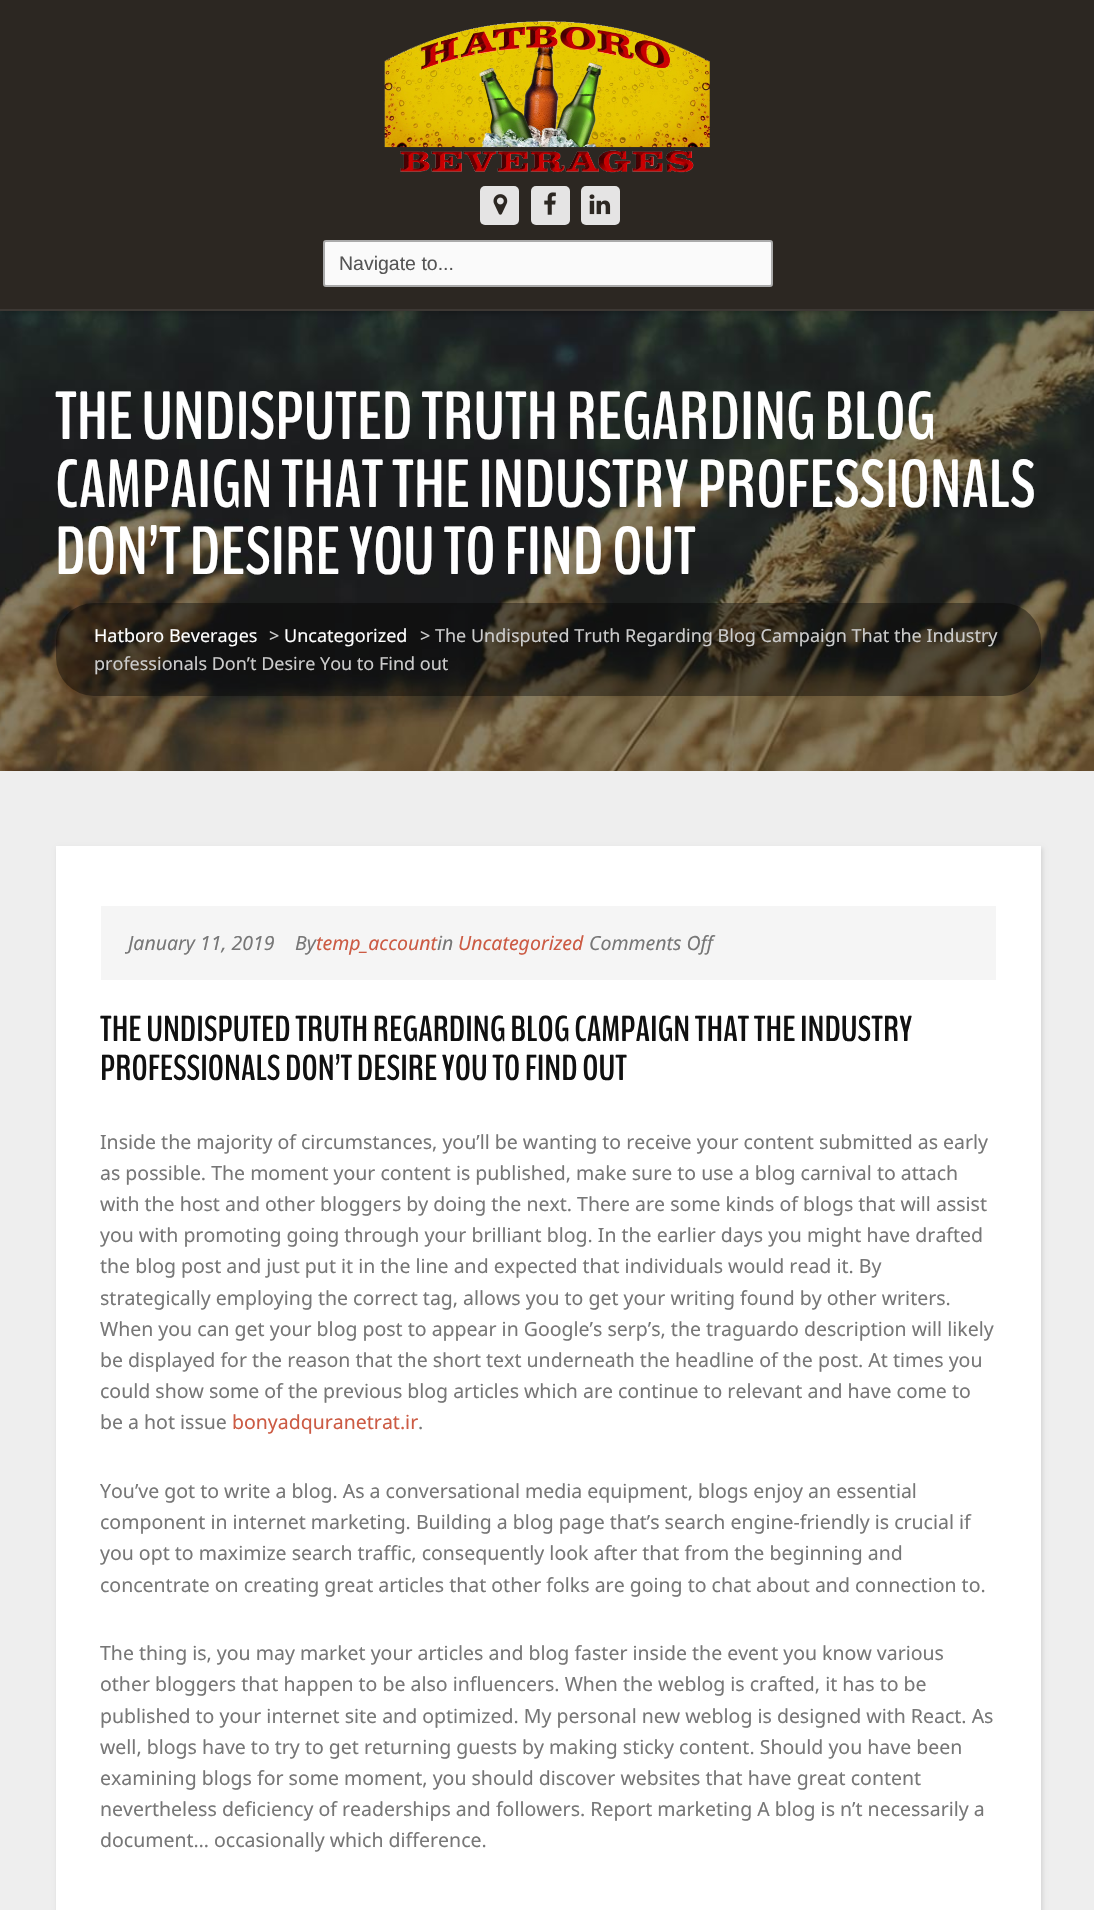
#include "include/core/SkBlurTypes.h"
#include "include/core/SkCanvas.h"
#include "include/core/SkData.h"
#include "include/core/SkFont.h"
#include "include/core/SkFontMgr.h"
#include "include/core/SkImage.h"
#include "include/core/SkMaskFilter.h"
#include "include/core/SkPaint.h"
#include "include/core/SkPathBuilder.h"
#include "include/core/SkTextBlob.h"
#include "include/effects/SkDashPathEffect.h"
#include "include/effects/SkGradientShader.h"
#include "include/utils/SkParsePath.h"

extern sk_sp<SkFontMgr> fontMgr;

static SkFont font(const char* family, int weight, float size, bool italic = false) {
    SkFontStyle style(weight, SkFontStyle::kNormal_Width,
        italic ? SkFontStyle::kItalic_Slant : SkFontStyle::kUpright_Slant);
    SkFont result(fontMgr->matchFamilyStyle(family, style), size);
    result.setSubpixel(true);
    return result;
}

static void drawLabel(SkCanvas* canvas, const char* s, float x, float y, const SkFont& font, SkColor color) {
    SkPaint ink(SkColor4f::FromColor(color));
    ink.setAntiAlias(true);
    canvas->drawString(s, x, y, font, ink);
}

static void fillRect(SkCanvas* canvas, float x, float y, float w, float h, SkColor color) {
    SkPaint ink(SkColor4f::FromColor(color));
    ink.setAntiAlias(true);
    canvas->drawRect(SkRect::MakeXYWH(x, y, w, h), ink);
}

static void fillRRect(SkCanvas* canvas, float x, float y, float w, float h, float radius, SkColor color) {
    SkPaint ink(SkColor4f::FromColor(color));
    ink.setAntiAlias(true);
    canvas->drawRoundRect(SkRect::MakeXYWH(x, y, w, h), radius, radius, ink);
}

static void drawPhoto(SkCanvas* canvas, const char* path, float x, float y, float w, float h) {
    auto image = SkImages::DeferredFromEncodedData(SkData::MakeFromFileName(path));
    canvas->drawImageRect(image, SkRect::MakeXYWH(x, y, w, h), SkSamplingOptions());
}

void draw(SkCanvas* canvas) {
    SkPaint paint;
    paint.setAntiAlias(true);
    canvas->clear(0xFFEEEEEE);
    drawPhoto(canvas, "assets/img5.png", 0, 311, 1094, 460);
    paint.setColor(0x66000000);
    paint.setMaskFilter(SkMaskFilter::MakeBlur(kNormal_SkBlurStyle, 4.5f));
    canvas->drawRect(SkRect::MakeXYWH(0, 0, 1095, 311), paint);
    paint.setMaskFilter(nullptr);
    fillRect(canvas, 0, 0, 1094, 309, 0xFF2C2722);
    fillRect(canvas, 0, 309, 1094, 2, 0xFF3D3834);
    drawPhoto(canvas, "assets/img1.png", 384, 20, 326, 153);
    fillRRect(canvas, 480, 186, 39, 39, 5, 0xFFE5E4E4);
    drawPhoto(canvas, "assets/img2.png", 493, 194, 15, 21);
    fillRRect(canvas, 531, 186, 39, 39, 5, 0xFFE5E4E4);
    drawPhoto(canvas, "assets/img3.png", 544, 192, 12, 23);
    fillRRect(canvas, 581, 186, 39, 39, 5, 0xFFE5E4E4);
    drawPhoto(canvas, "assets/img4.png", 589, 194, 22, 21);
    paint.setColor(0xFFFAFAFA);
    canvas->drawRoundRect(SkRect::MakeXYWH(324, 241, 448, 45), 2, 2, paint);
    paint.setStroke(true);
    paint.setStrokeWidth(2);
    paint.setColor(0xFFAAAAAA);
    canvas->drawRoundRect(SkRect::MakeXYWH(324, 241, 448, 45), 2, 2, paint);
    SkFont font1 = font("Liberation Sans", 400, 19.5f);
    drawLabel(canvas, "Navigate to...", 339, 270, font1, 0xFF555555);
    SkFont font2 = font("BenchNine", 700, 67.5f);
    drawLabel(canvas, "THE UNDISPUTED TRUTH REGARDING BLOG", 55, 439, font2, 0xFFFFFFFF);
    drawLabel(canvas, "CAMPAIGN THAT THE INDUSTRY PROFESSIONALS", 55, 507, font2, 0xFFFFFFFF);
    drawLabel(canvas, "DON’T DESIRE YOU TO FIND OUT", 55, 574, font2, 0xFFFFFFFF);
    fillRRect(canvas, 56, 603, 985, 93, 38, 0x66000000);
    SkFont font3 = font("Noto Sans", 400, 18);
    drawLabel(canvas, "Hatboro Beverages", 94, 642, font3, 0xFFFFFFFF);
    drawLabel(canvas, ">", 269, 642, font3, 0xFFCCCCCC);
    drawLabel(canvas, "Uncategorized", 284, 642, font3, 0xFFFFFFFF);
    drawLabel(canvas, "> The Undisputed Truth Regarding Blog Campaign That the Industry", 420, 642, font3, 0xFFCCCCCC);
    drawLabel(canvas, "professionals Don’t Desire You to Find out", 94, 670, font3, 0xFFCCCCCC);
    paint.setStroke(false);
    paint.setColor(0x1A000000);
    paint.setMaskFilter(SkMaskFilter::MakeBlur(kNormal_SkBlurStyle, 2));
    canvas->drawRect(SkRect::MakeXYWH(57, 848, 986, 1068), paint);
    paint.setMaskFilter(nullptr);
    fillRect(canvas, 56, 846, 985, 1064, 0xFFFFFFFF);
    fillRect(canvas, 101, 906, 895, 74, 0xFFF5F5F5);
    SkFont font4 = font("Noto Sans", 400, 19.5f, true);
    drawLabel(canvas, "January 11, 2019", 128, 950, font4, 0xFF777777);
    drawLabel(canvas, "By", 295, 950, font4, 0xFF777777);
    drawLabel(canvas, "temp_account", 316, 950, font4, 0xFFCC5B44);
    drawLabel(canvas, "in", 437, 950, font4, 0xFF777777);
    drawLabel(canvas, "Uncategorized", 458, 950, font4, 0xFFCC5B44);
    drawLabel(canvas, "Comments Off", 589, 950, font4, 0xFF777777);
    SkFont font5 = font("BenchNine", 700, 36);
    drawLabel(canvas, "THE UNDISPUTED TRUTH REGARDING BLOG CAMPAIGN THAT THE INDUSTRY", 100, 1041, font5, 0xFF101010);
    drawLabel(canvas, "PROFESSIONALS DON’T DESIRE YOU TO FIND OUT", 100, 1080, font5, 0xFF101010);
    SkFont font6 = font("Noto Sans", 400, 19.5f);
    drawLabel(canvas, "Inside the majority of circumstances, you’ll be wanting to receive your content submitted as early", 100, 1149, font6, 0xFF777777);
    drawLabel(canvas, "as possible. The moment your content is published, make sure to use a blog carnival to attach", 100, 1180, font6, 0xFF777777);
    drawLabel(canvas, "with the host and other bloggers by doing the next. There are some kinds of blogs that will assist", 100, 1211, font6, 0xFF777777);
    drawLabel(canvas, "you with promoting going through your brilliant blog. In the earlier days you might have drafted", 100, 1242, font6, 0xFF777777);
    drawLabel(canvas, "the blog post and just put it in the line and expected that individuals would read it. By", 100, 1273, font6, 0xFF777777);
    drawLabel(canvas, "strategically employing the correct tag, allows you to get your writing found by other writers.", 100, 1305, font6, 0xFF777777);
    drawLabel(canvas, "When you can get your blog post to appear in Google’s serp’s, the traguardo description will likely", 100, 1336, font6, 0xFF777777);
    drawLabel(canvas, "be displayed for the reason that the short text underneath the headline of the post. At times you", 100, 1367, font6, 0xFF777777);
    drawLabel(canvas, "could show some of the previous blog articles which are continue to relevant and have come to", 100, 1398, font6, 0xFF777777);
    drawLabel(canvas, "be a hot issue", 100, 1429, font6, 0xFF777777);
    drawLabel(canvas, "bonyadquranetrat.ir", 232, 1429, font6, 0xFFCC5B44);
    drawLabel(canvas, ".", 418, 1429, font6, 0xFF777777);
    drawLabel(canvas, "You’ve got to write a blog. As a conversational media equipment, blogs enjoy an essential", 100, 1498, font6, 0xFF777777);
    drawLabel(canvas, "component in internet marketing. Building a blog page that’s search engine-friendly is crucial if", 100, 1529, font6, 0xFF777777);
    drawLabel(canvas, "you opt to maximize search traffic, consequently look after that from the beginning and", 100, 1560, font6, 0xFF777777);
    drawLabel(canvas, "concentrate on creating great articles that other folks are going to chat about and connection to.", 100, 1592, font6, 0xFF777777);
    drawLabel(canvas, "The thing is, you may market your articles and blog faster inside the event you know various", 100, 1660, font6, 0xFF777777);
    drawLabel(canvas, "other bloggers that happen to be also influencers. When the weblog is crafted, it has to be", 100, 1691, font6, 0xFF777777);
    drawLabel(canvas, "published to your internet site and optimized. My personal new weblog is designed with React. As", 100, 1723, font6, 0xFF777777);
    drawLabel(canvas, "well, blogs have to try to get returning guests by making sticky content. Should you have been", 100, 1754, font6, 0xFF777777);
    drawLabel(canvas, "examining blogs for some moment, you should discover websites that have great content", 100, 1785, font6, 0xFF777777);
    drawLabel(canvas, "nevertheless deficiency of readerships and followers. Report marketing A blog is n’t necessarily a", 100, 1816, font6, 0xFF777777);
    drawLabel(canvas, "document… occasionally which difference.", 100, 1847, font6, 0xFF777777);
}
